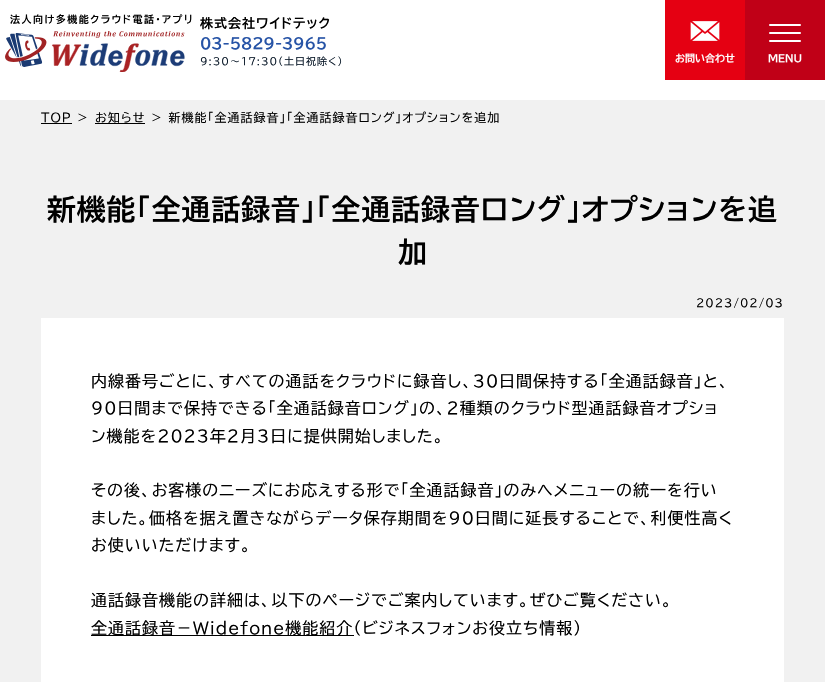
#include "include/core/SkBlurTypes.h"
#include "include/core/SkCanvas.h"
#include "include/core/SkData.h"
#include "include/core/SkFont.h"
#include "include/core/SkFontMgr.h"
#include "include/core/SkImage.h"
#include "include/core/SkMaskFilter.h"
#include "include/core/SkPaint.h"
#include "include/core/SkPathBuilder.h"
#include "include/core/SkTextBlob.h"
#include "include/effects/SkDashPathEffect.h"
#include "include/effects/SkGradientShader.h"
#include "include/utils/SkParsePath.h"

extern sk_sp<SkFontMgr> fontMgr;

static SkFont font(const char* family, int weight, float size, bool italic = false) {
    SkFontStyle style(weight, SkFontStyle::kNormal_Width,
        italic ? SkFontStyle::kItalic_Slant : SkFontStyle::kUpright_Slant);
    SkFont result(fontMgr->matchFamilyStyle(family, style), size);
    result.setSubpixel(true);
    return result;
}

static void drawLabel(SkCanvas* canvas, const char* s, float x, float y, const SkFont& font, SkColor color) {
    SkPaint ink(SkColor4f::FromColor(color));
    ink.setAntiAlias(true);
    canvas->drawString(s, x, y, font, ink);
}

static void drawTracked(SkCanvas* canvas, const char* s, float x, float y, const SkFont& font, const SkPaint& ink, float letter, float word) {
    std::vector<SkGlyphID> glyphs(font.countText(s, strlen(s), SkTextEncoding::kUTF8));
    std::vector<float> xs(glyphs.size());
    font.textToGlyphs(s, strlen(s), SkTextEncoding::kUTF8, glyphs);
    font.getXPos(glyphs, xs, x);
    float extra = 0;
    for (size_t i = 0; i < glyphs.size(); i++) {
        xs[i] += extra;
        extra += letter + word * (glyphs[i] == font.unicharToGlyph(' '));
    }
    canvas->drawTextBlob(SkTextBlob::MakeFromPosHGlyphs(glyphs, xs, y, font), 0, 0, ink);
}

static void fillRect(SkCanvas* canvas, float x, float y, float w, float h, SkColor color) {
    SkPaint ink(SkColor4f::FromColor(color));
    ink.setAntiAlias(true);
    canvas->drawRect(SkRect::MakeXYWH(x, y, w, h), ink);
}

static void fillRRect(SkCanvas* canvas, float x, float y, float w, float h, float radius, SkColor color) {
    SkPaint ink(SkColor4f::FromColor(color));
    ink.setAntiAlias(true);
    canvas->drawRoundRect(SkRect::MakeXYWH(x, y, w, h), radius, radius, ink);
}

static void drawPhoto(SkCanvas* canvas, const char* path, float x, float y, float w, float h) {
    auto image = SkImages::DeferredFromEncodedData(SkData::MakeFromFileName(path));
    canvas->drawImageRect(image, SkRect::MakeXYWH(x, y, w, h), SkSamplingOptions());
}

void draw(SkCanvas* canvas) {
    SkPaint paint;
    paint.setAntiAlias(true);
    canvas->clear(0xFFFFFFFF);
    SkFont font1 = font("BIZ UDPGothic", 700, 10);
    paint.setColor(0xFF000000);
    drawTracked(canvas, "法人向け多機能クラウド電話・アプリ", 10, 23, font1, paint, 1.5f, 0);
    drawPhoto(canvas, "assets/img1.png", 5, 31, 180, 41);
    SkFont font2 = font("BIZ UDPGothic", 700, 13);
    drawTracked(canvas, "株式会社ワイドテック", 200, 28, font2, paint, 1, 0);
    SkFont font3 = font("BIZ UDPGothic", 700, 15);
    paint.setColor(0xFF2653A6);
    drawTracked(canvas, "03-5829-3965", 200, 49, font3, paint, -0.1f, 0);
    SkFont font4 = font("BIZ UDPGothic", 400, 10);
    paint.setColor(0xFF0A1929);
    drawTracked(canvas, "9:30～17:30（土日祝除く）", 200, 65, font4, paint, 1, 0);
    fillRect(canvas, 665, 0, 80, 80, 0xFFE50012);
    drawPhoto(canvas, "assets/img2.png", 690, 21, 30, 20);
    drawLabel(canvas, "お問い合わせ", 675, 62, font1, 0xFFFFFFFF);
    fillRect(canvas, 745, 0, 80, 80, 0xFFC00017);
    fillRRect(canvas, 769, 24, 32, 2, 1, 0xFFFFFFFF);
    fillRRect(canvas, 769, 32, 32, 2, 1, 0xFFFFFFFF);
    fillRRect(canvas, 769, 40, 32, 2, 1, 0xFFFFFFFF);
    drawLabel(canvas, "MENU", 768, 62, font1, 0xFFFFFFFF);
    fillRect(canvas, 0, 100, 825, 582, 0xFFF1F1F1);
    SkFont font5 = font("BIZ UDPGothic", 400, 12);
    paint.setColor(0xFF000000);
    drawTracked(canvas, "TOP ＞", 41, 122, font5, paint, 1, 0);
    fillRect(canvas, 41, 123, 31, 1, 0xFF000000);
    fillRect(canvas, 95, 123, 50, 1, 0xFF000000);
    drawTracked(canvas, "お知らせ ＞ 新機能「全通話録音」「全通話録音ロング」オプションを追加", 95, 122, font5, paint, 1, 0);
    SkFont font6 = font("BIZ UDPGothic", 700, 28.8f);
    drawTracked(canvas, "新機能「全通話録音」「全通話録音ロング」オプションを追", 47, 220, font6, paint, 1, 0);
    drawTracked(canvas, "加", 398, 263, font6, paint, 1, 0);
    SkFont font7 = font("BIZ UDPGothic", 400, 11);
    drawTracked(canvas, "2023/02/03", 696, 307, font7, paint, 1, 0);
    fillRect(canvas, 41, 318, 743, 364, 0xFFFFFFFF);
    SkFont font8 = font("BIZ UDPGothic", 400, 16);
    drawTracked(canvas, "内線番号ごとに、すべての通話をクラウドに録音し、30日間保持する「全通話録音」と、", 91, 387, font8, paint, 1, 0);
    drawTracked(canvas, "90日間まで保持できる「全通話録音ロング」の、2種類のクラウド型通話録音オプショ", 91, 414, font8, paint, 1, 0);
    drawTracked(canvas, "ン機能を2023年2月3日に提供開始しました。", 91, 442, font8, paint, 1, 0);
    drawTracked(canvas, "その後、お客様のニーズにお応えする形で「全通話録音」のみへメニューの統一を行い", 91, 496, font8, paint, 1, 0);
    drawTracked(canvas, "ました。価格を据え置きながらデータ保存期間を90日間に延長することで、利便性高く", 91, 524, font8, paint, 1, 0);
    drawTracked(canvas, "お使いいただけます。", 91, 551, font8, paint, 1, 0);
    drawTracked(canvas, "通話録音機能の詳細は、以下のページでご案内しています。ぜひご覧ください。", 91, 606, font8, paint, 1, 0);
    fillRect(canvas, 91, 635, 263, 1, 0xFF000000);
    drawTracked(canvas, "全通話録音－Widefone機能紹介（ビジネスフォンお役立ち情報）", 91, 634, font8, paint, 1, 0);
}
